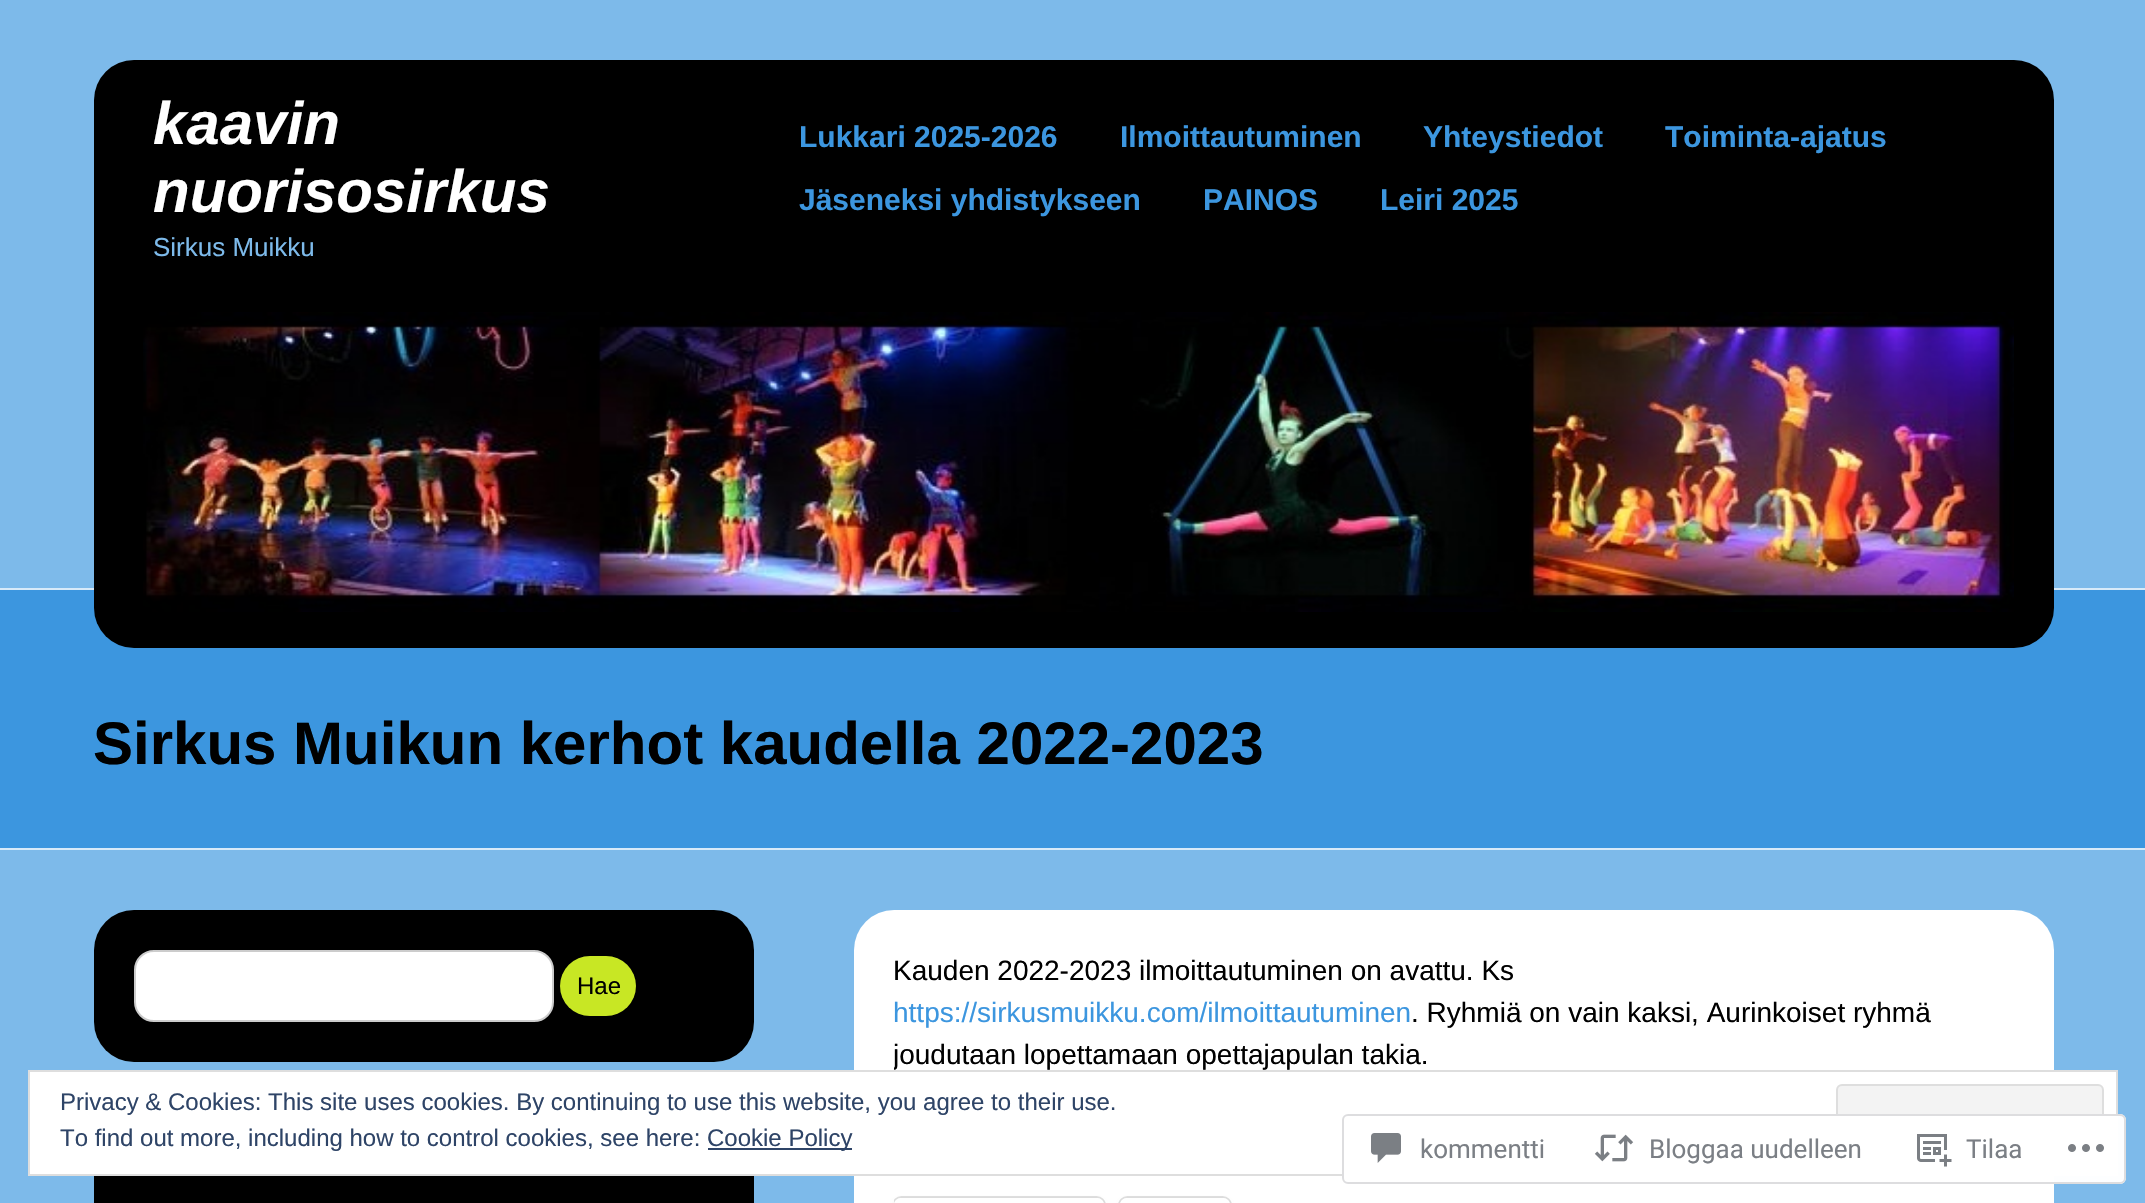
#include "include/core/SkBlurTypes.h"
#include "include/core/SkCanvas.h"
#include "include/core/SkData.h"
#include "include/core/SkFont.h"
#include "include/core/SkFontMgr.h"
#include "include/core/SkImage.h"
#include "include/core/SkMaskFilter.h"
#include "include/core/SkPaint.h"
#include "include/core/SkPathBuilder.h"
#include "include/core/SkTextBlob.h"
#include "include/effects/SkDashPathEffect.h"
#include "include/effects/SkGradientShader.h"
#include "include/utils/SkParsePath.h"

extern sk_sp<SkFontMgr> fontMgr;

static SkFont font(const char* family, int weight, float size, bool italic = false) {
    SkFontStyle style(weight, SkFontStyle::kNormal_Width,
        italic ? SkFontStyle::kItalic_Slant : SkFontStyle::kUpright_Slant);
    SkFont result(fontMgr->matchFamilyStyle(family, style), size);
    result.setSubpixel(true);
    return result;
}

static void drawLabel(SkCanvas* canvas, const char* s, float x, float y, const SkFont& font, SkColor color) {
    SkPaint ink(SkColor4f::FromColor(color));
    ink.setAntiAlias(true);
    canvas->drawString(s, x, y, font, ink);
}

static void fillRect(SkCanvas* canvas, float x, float y, float w, float h, SkColor color) {
    SkPaint ink(SkColor4f::FromColor(color));
    ink.setAntiAlias(true);
    canvas->drawRect(SkRect::MakeXYWH(x, y, w, h), ink);
}

static void fillRRect(SkCanvas* canvas, float x, float y, float w, float h, float radius, SkColor color) {
    SkPaint ink(SkColor4f::FromColor(color));
    ink.setAntiAlias(true);
    canvas->drawRoundRect(SkRect::MakeXYWH(x, y, w, h), radius, radius, ink);
}

static void drawPhoto(SkCanvas* canvas, const char* path, float x, float y, float w, float h) {
    auto image = SkImages::DeferredFromEncodedData(SkData::MakeFromFileName(path));
    canvas->drawImageRect(image, SkRect::MakeXYWH(x, y, w, h), SkSamplingOptions());
}

void draw(SkCanvas* canvas) {
    SkPaint paint;
    paint.setAntiAlias(true);
    canvas->clear(0xFF7DBAEA);
    fillRect(canvas, 0, 590, 2145, 258, 0xFF3C96DF);
    fillRect(canvas, 0, 588, 2145, 2, 0xFFD8EAF9);
    fillRRect(canvas, 94, 60, 1960, 588, 40, 0xFF000000);
    SkFont font1 = font("Liberation Sans", 700, 60, true);
    drawLabel(canvas, "kaavin", 153, 144, font1, 0xFFFFFFFF);
    drawLabel(canvas, "nuorisosirkus", 153, 212, font1, 0xFFFFFFFF);
    SkFont font2 = font("Liberation Sans", 400, 26);
    drawLabel(canvas, "Sirkus Muikku", 153, 256, font2, 0xFF7DBAEA);
    SkFont font3 = font("Liberation Sans", 700, 30);
    drawLabel(canvas, "Lukkari 2025-2026", 799, 147, font3, 0xFF3C96DF);
    drawLabel(canvas, "Ilmoittautuminen", 1120, 147, font3, 0xFF3C96DF);
    drawLabel(canvas, "Yhteystiedot", 1423, 147, font3, 0xFF3C96DF);
    drawLabel(canvas, "Toiminta-ajatus", 1665, 147, font3, 0xFF3C96DF);
    drawLabel(canvas, "Jäseneksi yhdistykseen", 799, 210, font3, 0xFF3C96DF);
    drawLabel(canvas, "PAINOS", 1203, 210, font3, 0xFF3C96DF);
    drawLabel(canvas, "Leiri 2025", 1380, 210, font3, 0xFF3C96DF);
    drawPhoto(canvas, "assets/img1.png", 143, 312, 1871, 300);
    fillRect(canvas, 0, 848, 2145, 2, 0xFFD8EAF9);
    SkFont font4 = font("Liberation Sans", 700, 60);
    drawLabel(canvas, "Sirkus Muikun kerhot kaudella 2022-2023", 93, 764, font4, 0xFF000000);
    fillRRect(canvas, 94, 910, 660, 152, 40, 0xFF000000);
    paint.setColor(0xFFFFFFFF);
    canvas->drawRoundRect(SkRect::MakeXYWH(135, 951, 418, 70), 19, 19, paint);
    paint.setStroke(true);
    paint.setStrokeWidth(2);
    paint.setColor(0xFFCCCCCC);
    canvas->drawRoundRect(SkRect::MakeXYWH(135, 951, 418, 70), 19, 19, paint);
    fillRRect(canvas, 560, 956, 76, 60, 30, 0xFFC8E724);
    SkFont font5 = font("Liberation Sans", 400, 24);
    drawLabel(canvas, "Hae", 577, 994, font5, 0xFF000000);
    fillRect(canvas, 94, 1176, 660, 27, 0xFF000000);
    fillRRect(canvas, 854, 910, 1200, 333, 40, 0xFFFFFFFF);
    SkFont font6 = font("Liberation Sans", 400, 28);
    drawLabel(canvas, "Kauden 2022-2023 ilmoittautuminen on avattu. Ks", 893, 980, font6, 0xFF000000);
    drawLabel(canvas, "https://sirkusmuikku.com/ilmoittautuminen", 893, 1022, font6, 0xFF3C96DF);
    drawLabel(canvas, ". Ryhmiä on vain kaksi, Aurinkoiset ryhmä", 1411, 1022, font6, 0xFF000000);
    canvas->save();
    canvas->clipRect(SkRect::MakeXYWH(894, 950, 1120, 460));
    drawLabel(canvas, "joudutaan lopettamaan opettajapulan takia.", 893, 1064, font6, 0xFF000000);
    paint.setColor(0xFFE0E0E0);
    canvas->drawRoundRect(SkRect::MakeXYWH(893, 1197, 212, 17), 9, 9, paint);
    canvas->restore();
    paint.setStroke(false);
    paint.setColor(0x1F000000);
    paint.setMaskFilter(SkMaskFilter::MakeBlur(kNormal_SkBlurStyle, 2));
    canvas->drawRoundRect(SkRect::MakeXYWH(894, 1200, 210, 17), 8, 8, paint);
    paint.setMaskFilter(nullptr);
    fillRRect(canvas, 894, 1198, 210, 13, 8, 0xFFFFFFFF);
    paint.setStroke(true);
    paint.setColor(0xFFE0E0E0);
    canvas->drawRoundRect(SkRect::MakeXYWH(1119, 1197, 112, 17), 9, 9, paint);
    paint.setStroke(false);
    paint.setColor(0x1F000000);
    paint.setMaskFilter(SkMaskFilter::MakeBlur(kNormal_SkBlurStyle, 2));
    canvas->drawRoundRect(SkRect::MakeXYWH(1120, 1200, 110, 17), 8, 8, paint);
    paint.setMaskFilter(nullptr);
    fillRRect(canvas, 1120, 1198, 110, 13, 8, 0xFFFFFFFF);
    paint.setColor(0xFFFFFFFF);
    canvas->drawRect(SkRect::MakeXYWH(29, 1071, 2088, 104), paint);
    paint.setStroke(true);
    paint.setColor(0xFFDEDEDE);
    canvas->drawRect(SkRect::MakeXYWH(29, 1071, 2088, 104), paint);
    drawLabel(canvas, "Privacy & Cookies: This site uses cookies. By continuing to use this website, you agree to their use.", 60, 1110, font5, 0xFF2E4467);
    paint.setStroke(false);
    paint.setColor(0xFFF3F3F3);
    canvas->drawRoundRect(SkRect::MakeXYWH(1837, 1085, 266, 76), 5, 5, paint);
    paint.setStroke(true);
    paint.setColor(0xFFDEDEDE);
    canvas->drawRoundRect(SkRect::MakeXYWH(1837, 1085, 266, 76), 5, 5, paint);
    drawLabel(canvas, "To find out more, including how to control cookies, see here:", 60, 1146, font5, 0xFF2E4467);
    fillRect(canvas, 708, 1148, 144, 2, 0xFF2E4467);
    drawLabel(canvas, "Cookie Policy", 707, 1146, font5, 0xFF2E4467);
    fillRRect(canvas, 1342, 1114, 784, 70, 6, 0xFAFFFFFF);
    paint.setColor(0xFADCDCDE);
    canvas->drawRoundRect(SkRect::MakeXYWH(1343, 1115, 782, 68), 5, 5, paint);
    drawPhoto(canvas, "assets/img2.png", 1371, 1133, 30, 30);
    SkFont font7 = font("Roboto", 400, 26);
    drawLabel(canvas, "kommentti", 1420, 1158, font7, 0xFF7B7F85);
    drawPhoto(canvas, "assets/img3.png", 1594, 1134, 40, 28);
    drawLabel(canvas, "Bloggaa uudelleen", 1649, 1158, font7, 0xFF7B7F85);
    drawPhoto(canvas, "assets/img4.png", 1917, 1134, 35, 33);
    drawLabel(canvas, "Tilaa", 1966, 1158, font7, 0xFF7B7F85);
    drawPhoto(canvas, "assets/img5.png", 2068, 1144, 36, 8);
}
